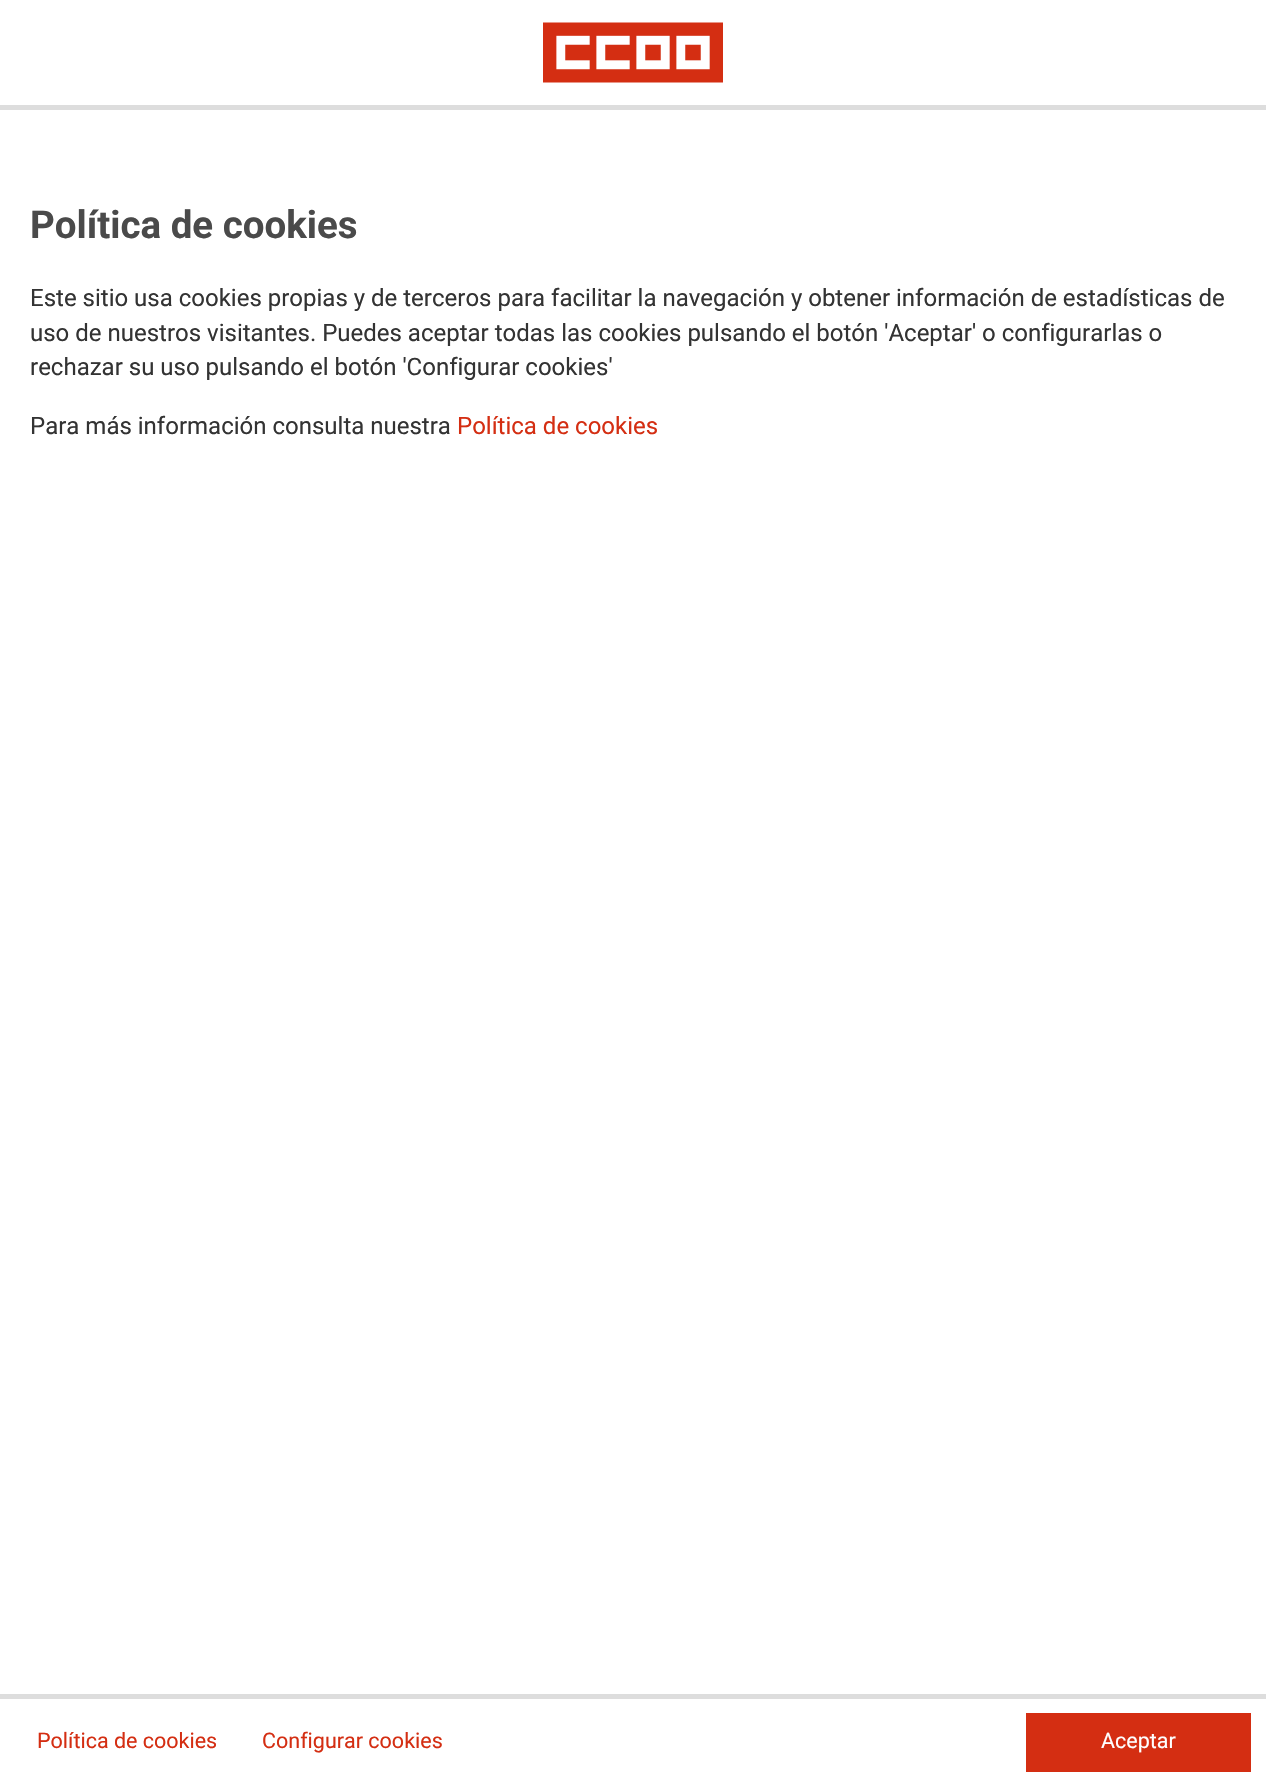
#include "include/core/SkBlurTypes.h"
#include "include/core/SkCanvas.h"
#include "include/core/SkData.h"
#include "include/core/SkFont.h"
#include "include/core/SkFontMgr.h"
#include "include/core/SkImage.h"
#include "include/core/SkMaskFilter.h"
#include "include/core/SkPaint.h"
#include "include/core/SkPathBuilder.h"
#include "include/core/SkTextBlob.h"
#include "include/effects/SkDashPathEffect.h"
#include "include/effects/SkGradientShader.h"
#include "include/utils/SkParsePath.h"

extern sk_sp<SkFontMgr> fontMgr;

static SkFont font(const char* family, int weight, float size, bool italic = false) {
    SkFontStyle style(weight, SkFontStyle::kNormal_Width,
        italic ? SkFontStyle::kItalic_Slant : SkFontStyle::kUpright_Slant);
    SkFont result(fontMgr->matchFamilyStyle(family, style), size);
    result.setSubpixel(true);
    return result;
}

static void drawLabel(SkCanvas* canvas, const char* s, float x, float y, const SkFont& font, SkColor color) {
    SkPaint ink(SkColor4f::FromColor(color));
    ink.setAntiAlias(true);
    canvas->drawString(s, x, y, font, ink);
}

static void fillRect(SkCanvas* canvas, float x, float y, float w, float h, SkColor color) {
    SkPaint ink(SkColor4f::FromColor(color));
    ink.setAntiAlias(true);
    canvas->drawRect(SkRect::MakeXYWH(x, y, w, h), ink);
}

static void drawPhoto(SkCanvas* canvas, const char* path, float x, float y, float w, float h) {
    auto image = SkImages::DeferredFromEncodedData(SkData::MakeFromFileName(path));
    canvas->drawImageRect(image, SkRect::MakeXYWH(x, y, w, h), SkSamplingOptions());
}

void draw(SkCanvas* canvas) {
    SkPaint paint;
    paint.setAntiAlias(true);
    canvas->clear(0xFFFFFFFF);
    fillRect(canvas, 0, 105, 1266, 5, 0xFFDDDDDD);
    drawPhoto(canvas, "assets/img1.png", 543, 22, 180, 61);
    SkFont font1 = font("Roboto", 700, 38.5f);
    drawLabel(canvas, "Política de cookies", 30, 238, font1, 0xFF4A4A4A);
    SkFont font2 = font("Roboto", 400, 24);
    drawLabel(canvas, "Este sitio usa cookies propias y de terceros para facilitar la navegación y obtener información de estadísticas de", 30, 306, font2, 0xFF333333);
    drawLabel(canvas, "uso de nuestros visitantes. Puedes aceptar todas las cookies pulsando el botón 'Aceptar' o configurarlas o", 30, 341, font2, 0xFF333333);
    drawLabel(canvas, "rechazar su uso pulsando el botón 'Configurar cookies'", 30, 375, font2, 0xFF333333);
    drawLabel(canvas, "Para más información consulta nuestra", 30, 434, font2, 0xFF333333);
    drawLabel(canvas, "Política de cookies", 457, 434, font2, 0xFFD42E12);
    fillRect(canvas, 0, 1694, 1266, 5, 0xFFDDDDDD);
    SkFont font3 = font("Roboto", 400, 21.5f);
    drawLabel(canvas, "Política de cookies", 37, 1748, font3, 0xFFD42E12);
    drawLabel(canvas, "Configurar cookies", 262, 1748, font3, 0xFFD42E12);
    fillRect(canvas, 1026, 1713, 225, 59, 0xFFD42E12);
    drawLabel(canvas, "Aceptar", 1101, 1748, font3, 0xFFFFFFFF);
}
